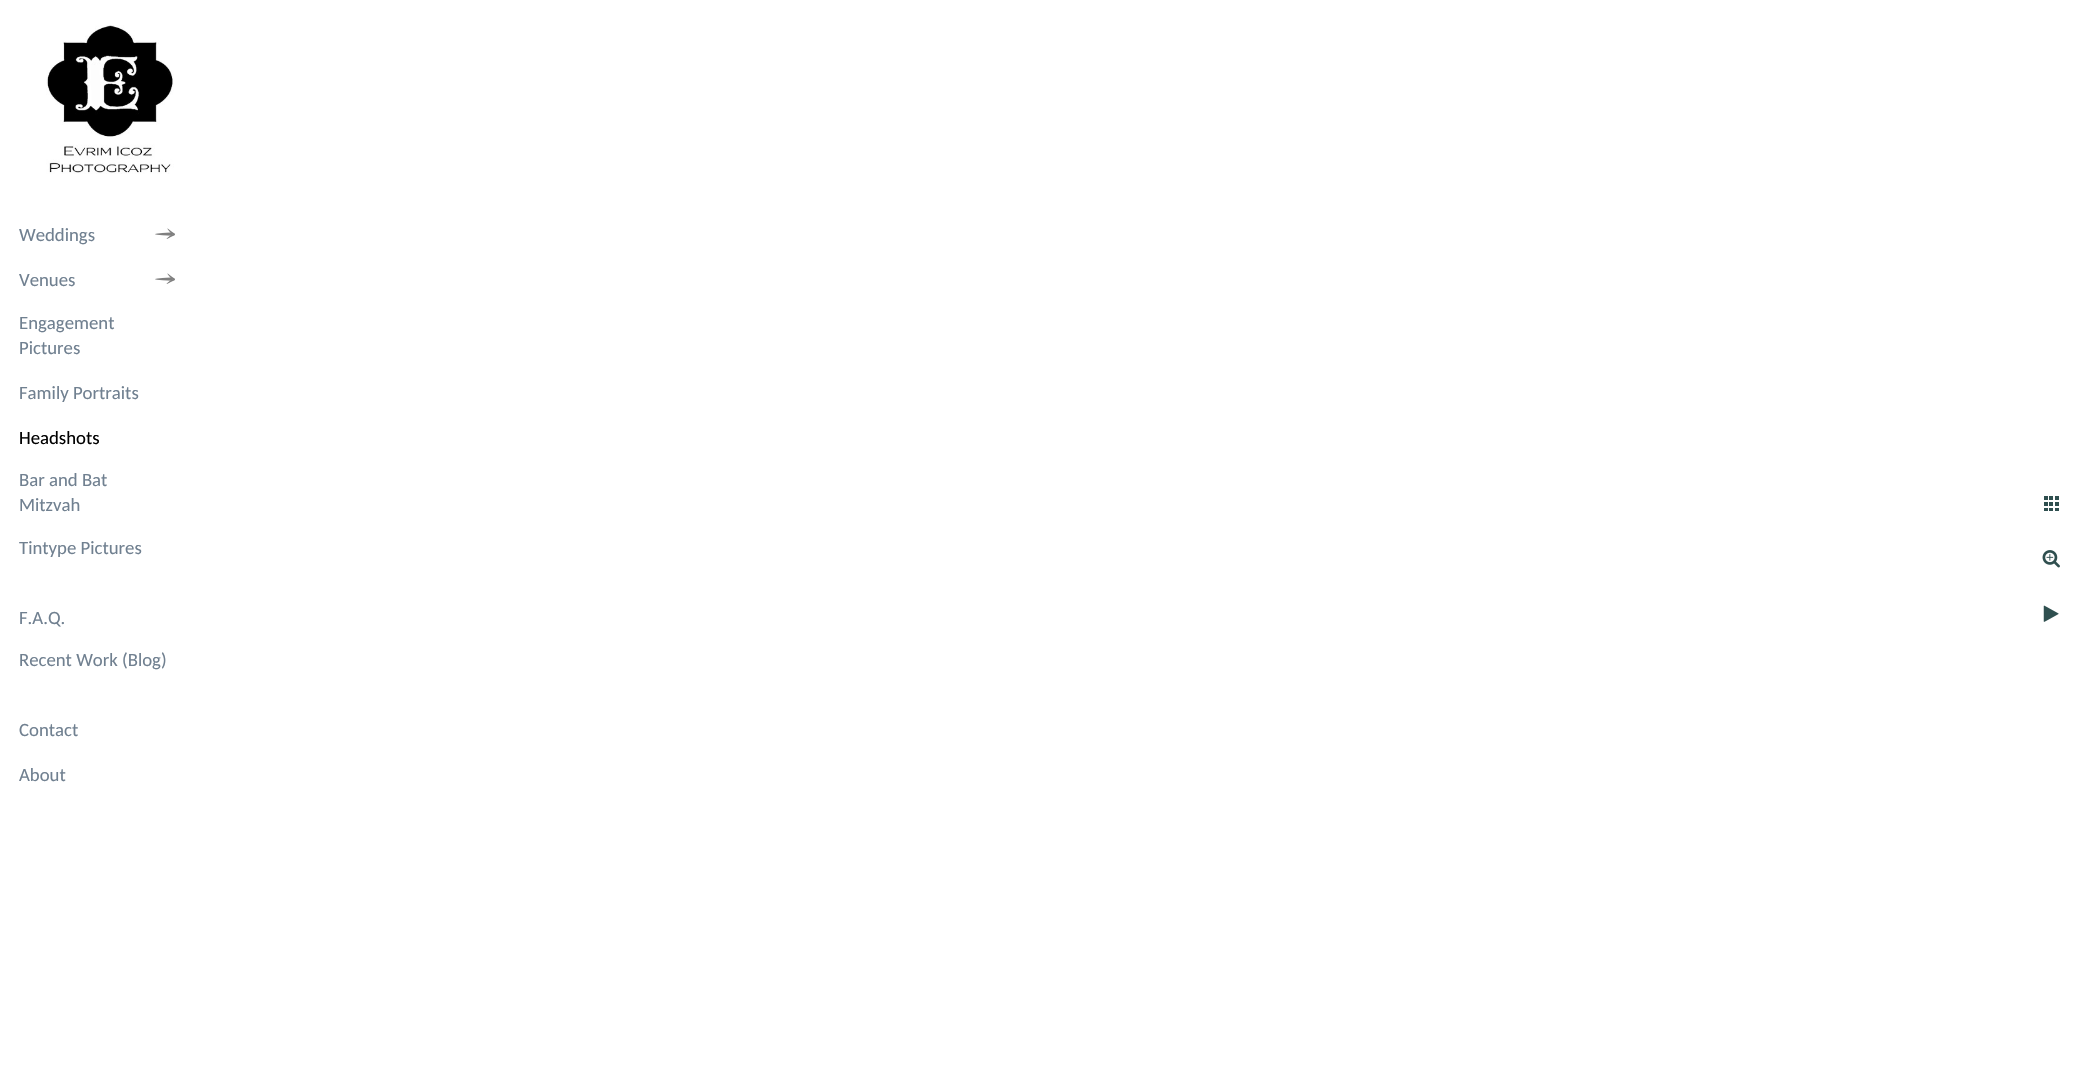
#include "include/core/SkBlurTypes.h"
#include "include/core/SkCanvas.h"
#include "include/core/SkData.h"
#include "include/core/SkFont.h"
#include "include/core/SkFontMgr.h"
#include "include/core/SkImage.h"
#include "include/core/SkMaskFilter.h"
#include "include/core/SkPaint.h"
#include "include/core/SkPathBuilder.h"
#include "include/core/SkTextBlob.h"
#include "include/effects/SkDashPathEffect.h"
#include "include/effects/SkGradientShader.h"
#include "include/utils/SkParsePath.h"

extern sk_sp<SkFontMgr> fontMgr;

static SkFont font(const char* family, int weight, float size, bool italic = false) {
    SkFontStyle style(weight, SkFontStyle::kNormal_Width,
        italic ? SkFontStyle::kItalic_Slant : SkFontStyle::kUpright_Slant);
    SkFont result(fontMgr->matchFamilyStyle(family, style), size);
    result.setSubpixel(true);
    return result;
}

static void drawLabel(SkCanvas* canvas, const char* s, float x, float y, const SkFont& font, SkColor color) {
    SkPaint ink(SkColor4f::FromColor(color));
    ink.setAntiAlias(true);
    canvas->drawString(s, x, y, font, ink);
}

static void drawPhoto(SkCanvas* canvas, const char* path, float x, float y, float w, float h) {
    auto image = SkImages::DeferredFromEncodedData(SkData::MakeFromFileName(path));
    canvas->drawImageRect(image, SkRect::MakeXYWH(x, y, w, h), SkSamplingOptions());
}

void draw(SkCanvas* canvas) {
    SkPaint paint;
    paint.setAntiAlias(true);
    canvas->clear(0xFFFFFFFF);
    drawPhoto(canvas, "assets/img1.png", 46, 25, 128, 149);
    SkFont font1 = font("Carlito", 400, 18.75f);
    drawLabel(canvas, "Weddings", 19, 241, font1, 0xFF708090);
    drawPhoto(canvas, "assets/img2.png", 155, 228, 20, 11);
    drawLabel(canvas, "Venues", 19, 286, font1, 0xFF708090);
    drawPhoto(canvas, "assets/img2.png", 155, 273, 20, 11);
    drawLabel(canvas, "Engagement", 19, 329, font1, 0xFF708090);
    drawLabel(canvas, "Pictures", 19, 354, font1, 0xFF708090);
    drawLabel(canvas, "Family Portraits", 19, 399, font1, 0xFF708090);
    drawLabel(canvas, "Headshots", 19, 444, font1, 0xFF000000);
    drawLabel(canvas, "Bar and Bat", 19, 486, font1, 0xFF708090);
    drawLabel(canvas, "Mitzvah", 19, 511, font1, 0xFF708090);
    drawLabel(canvas, "Tintype Pictures", 19, 554, font1, 0xFF708090);
    drawLabel(canvas, "F.A.Q.", 19, 624, font1, 0xFF708090);
    drawLabel(canvas, "Recent Work (Blog)", 19, 666, font1, 0xFF708090);
    drawLabel(canvas, "Contact", 19, 736, font1, 0xFF708090);
    drawLabel(canvas, "About", 19, 781, font1, 0xFF708090);
    drawPhoto(canvas, "assets/img3.png", 2044, 496, 15, 15);
    drawPhoto(canvas, "assets/img4.png", 2042, 550, 18, 18);
    drawPhoto(canvas, "assets/img5.png", 2043, 605, 16, 17);
}
